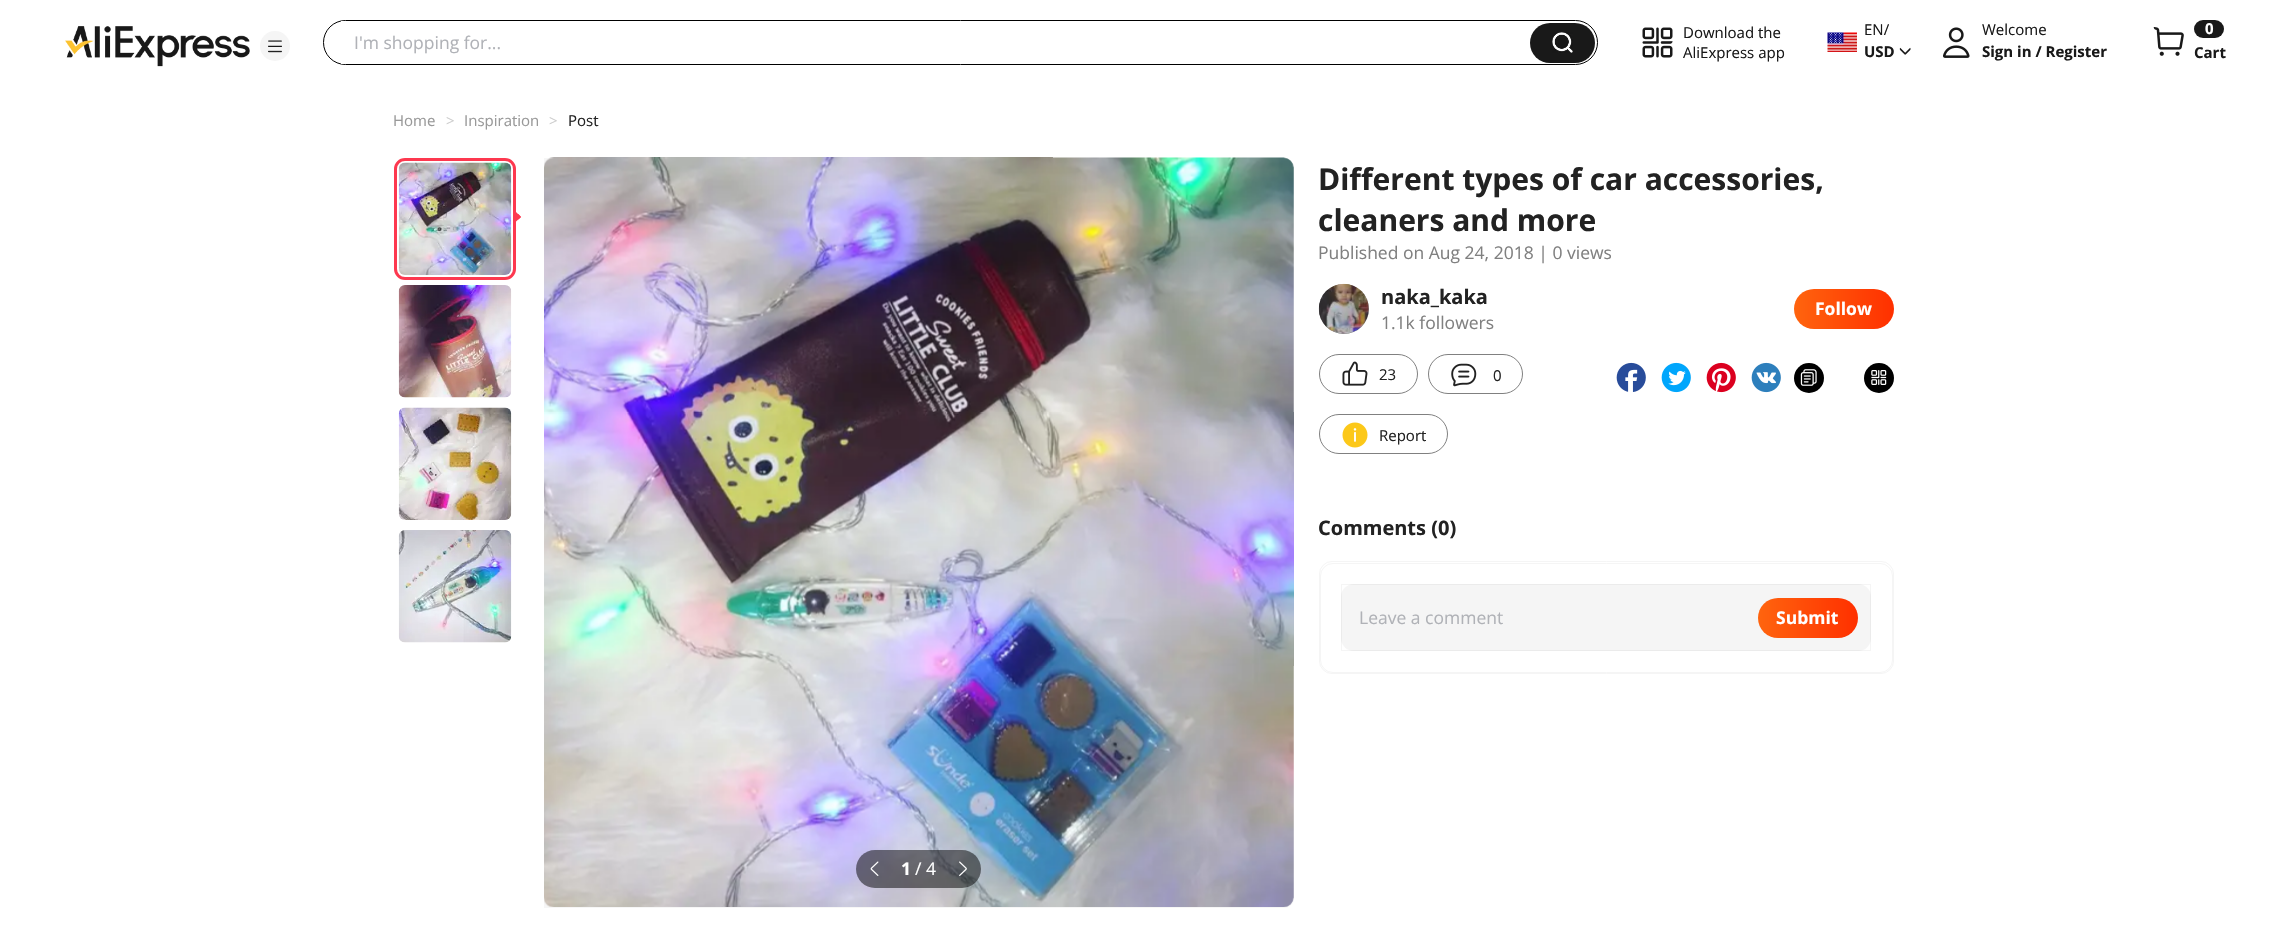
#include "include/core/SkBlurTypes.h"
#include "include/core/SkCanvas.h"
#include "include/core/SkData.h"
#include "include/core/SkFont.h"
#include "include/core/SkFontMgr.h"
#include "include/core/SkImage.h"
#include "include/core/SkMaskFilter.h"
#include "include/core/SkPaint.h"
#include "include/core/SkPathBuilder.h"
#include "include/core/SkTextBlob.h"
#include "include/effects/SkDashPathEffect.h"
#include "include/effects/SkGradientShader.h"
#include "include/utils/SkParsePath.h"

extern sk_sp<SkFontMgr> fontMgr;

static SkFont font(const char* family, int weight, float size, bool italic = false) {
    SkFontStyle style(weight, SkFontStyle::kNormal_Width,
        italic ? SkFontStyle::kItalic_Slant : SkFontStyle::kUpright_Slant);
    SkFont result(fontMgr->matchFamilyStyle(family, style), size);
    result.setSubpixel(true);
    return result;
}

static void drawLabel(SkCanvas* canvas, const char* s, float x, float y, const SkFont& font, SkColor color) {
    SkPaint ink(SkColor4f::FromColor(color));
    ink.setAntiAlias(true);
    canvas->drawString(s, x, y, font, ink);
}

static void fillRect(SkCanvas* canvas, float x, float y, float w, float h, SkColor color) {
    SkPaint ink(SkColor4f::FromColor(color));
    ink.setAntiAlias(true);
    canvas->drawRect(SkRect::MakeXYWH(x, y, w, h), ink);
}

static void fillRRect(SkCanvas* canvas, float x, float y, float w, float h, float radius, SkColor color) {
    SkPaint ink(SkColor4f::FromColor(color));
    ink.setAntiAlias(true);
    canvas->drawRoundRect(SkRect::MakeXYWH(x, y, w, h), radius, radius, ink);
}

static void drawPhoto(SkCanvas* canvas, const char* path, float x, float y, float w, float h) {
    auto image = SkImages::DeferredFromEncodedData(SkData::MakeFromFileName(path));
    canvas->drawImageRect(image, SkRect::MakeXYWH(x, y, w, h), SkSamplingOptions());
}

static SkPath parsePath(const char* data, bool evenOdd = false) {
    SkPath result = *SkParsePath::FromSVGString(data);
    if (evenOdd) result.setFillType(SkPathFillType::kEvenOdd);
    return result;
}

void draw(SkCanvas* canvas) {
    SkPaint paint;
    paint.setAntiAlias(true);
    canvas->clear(0xFFFFFFFF);
    drawPhoto(canvas, "assets/img1.png", 65, 26, 185, 41);
    paint.setColor(0xFFF5F5F5);
    canvas->drawCircle(275, 46, 15, paint);
    drawPhoto(canvas, "assets/img2.png", 268, 40, 14, 13);
    paint.setStroke(true);
    paint.setStrokeWidth(1);
    paint.setColor(0xFF000000);
    canvas->drawRoundRect(SkRect::MakeXYWH(323.5f, 20.5f, 1274, 44), 22, 22, paint);
    fillRect(canvas, 341, 21, 4, 43, 0xFFFFFFFF);
    SkFont font1 = font("Open Sans", 400, 17.5f);
    drawLabel(canvas, "I'm shopping for...", 354, 49, font1, 0xFFB0B2B7);
    fillRRect(canvas, 1530, 23, 65, 40, 20, 0xFF191919);
    drawPhoto(canvas, "assets/img3.png", 1552, 32, 21, 21);
    drawPhoto(canvas, "assets/img4.png", 1642, 27, 31, 31);
    SkFont font2 = font("Open Sans", 400, 15);
    drawLabel(canvas, "Download the", 1683, 38, font2, 0xFF191919);
    drawLabel(canvas, "AliExpress app", 1683, 58, font2, 0xFF191919);
    drawPhoto(canvas, "assets/img5.png", 1827, 32, 30, 20);
    drawLabel(canvas, "EN/", 1864, 35, font2, 0xFF191919);
    SkFont font3 = font("Open Sans", 700, 15);
    drawLabel(canvas, "USD", 1864, 57, font3, 0xFF191919);
    drawPhoto(canvas, "assets/img6.png", 1899, 47, 12, 8);
    drawPhoto(canvas, "assets/img7.png", 1943, 27, 27, 31);
    drawLabel(canvas, "Welcome", 1982, 35, font2, 0xFF191919);
    drawLabel(canvas, "Sign in / Register", 1982, 57, font3, 0xFF191919);
    drawPhoto(canvas, "assets/img8.png", 2153, 27, 31, 29);
    fillRRect(canvas, 2194, 20, 30, 18, 9, 0xFF191919);
    drawLabel(canvas, "0", 2205, 34, font3, 0xFFFFFFFF);
    drawLabel(canvas, "Cart", 2194, 58, font3, 0xFF191919);
    drawLabel(canvas, "Home", 393, 126, font2, 0xFF999999);
    drawLabel(canvas, ">", 446, 126, font2, 0xFFCCCCCC);
    drawLabel(canvas, "Inspiration", 464, 126, font2, 0xFF999999);
    drawLabel(canvas, ">", 549, 126, font2, 0xFFCCCCCC);
    drawLabel(canvas, "Post", 568, 126, font2, 0xFF222222);
    SkFont font4 = font("Open Sans", 700, 30);
    drawLabel(canvas, "Different types of car accessories,", 1318, 190, font4, 0xFF222222);
    drawLabel(canvas, "cleaners and more", 1318, 231, font4, 0xFF222222);
    drawLabel(canvas, "Published on Aug 24, 2018 | 0 views", 1318, 259, font1, 0xFF808080);
    paint.setStroke(false);
    paint.setColor(0xFF808080);
    canvas->drawCircle(1344, 309, 25, paint);
    drawPhoto(canvas, "assets/img9.png", 1318, 283, 51, 51);
    SkFont font5 = font("Open Sans", 700, 20);
    drawLabel(canvas, "naka_kaka", 1381, 304, font5, 0xFF222222);
    drawLabel(canvas, "1.1k followers", 1381, 329, font1, 0xFF808080);
    {
        const SkColor colors[] = {0xFFFF640E, 0xFFFF3000};
        const float stops[] = {0, 1};
        const SkPoint ends[] = {{1794, 309}, {1894, 309}};
        paint.setShader(SkGradientShader::MakeLinear(ends, colors, stops, 2, SkTileMode::kClamp));
        paint.setAlpha(255);
    }
    canvas->drawRoundRect(SkRect::MakeXYWH(1794, 289, 100, 40), 20, 20, paint);
    SkFont font6 = font("Open Sans", 700, 17.5f);
    drawLabel(canvas, "Follow", 1815, 315, font6, 0xFFFFFFFF);
    paint.setStroke(true);
    paint.setShader(nullptr);
    paint.setColor(0xFF808080);
    canvas->drawRoundRect(SkRect::MakeXYWH(1319.5f, 354.5f, 98, 39), 19.5f, 19.5f, paint);
    drawPhoto(canvas, "assets/img10.png", 1342, 361, 26, 25);
    drawLabel(canvas, "23", 1379, 380, font2, 0xFF222222);
    canvas->drawRoundRect(SkRect::MakeXYWH(1428.5f, 354.5f, 94, 39), 19.5f, 19.5f, paint);
    drawPhoto(canvas, "assets/img11.png", 1451, 363, 26, 24);
    drawLabel(canvas, "0", 1493, 381, font2, 0xFF222222);
    canvas->drawRoundRect(SkRect::MakeXYWH(1319.5f, 414.5f, 128, 39), 19.5f, 19.5f, paint);
    drawPhoto(canvas, "assets/img12.png", 1342, 422, 26, 26);
    drawLabel(canvas, "Report", 1379, 441, font2, 0xFF222222);
    drawPhoto(canvas, "assets/img13.png", 1616, 362, 30, 30);
    drawPhoto(canvas, "assets/img14.png", 1661, 362, 30, 31);
    drawPhoto(canvas, "assets/img15.png", 1706, 362, 30, 31);
    drawPhoto(canvas, "assets/img16.png", 1751, 362, 30, 31);
    paint.setStroke(false);
    paint.setColor(0xFF000000);
    canvas->drawCircle(1809, 378, 15, paint);
    drawPhoto(canvas, "assets/img17.png", 1800, 369, 17, 17);
    canvas->drawCircle(1879, 378, 15, paint);
    drawPhoto(canvas, "assets/img18.png", 1871, 370, 16, 15);
    drawLabel(canvas, "Comments (0)", 1318, 535, font5, 0xFF222222);
    paint.setStroke(true);
    paint.setColor(0xFFF5F5F5);
    canvas->drawRoundRect(SkRect::MakeXYWH(1319.5f, 561.5f, 574, 112), 12.5f, 12.5f, paint);
    canvas->drawRoundRect(SkRect::MakeXYWH(1320.5f, 563.5f, 572, 109), 12.5f, 12.5f, paint);
    fillRRect(canvas, 1341, 584, 530, 67, 13, 0xFFF5F5F5);
    paint.setColor(0x0A000000);
    canvas->drawRect(SkRect::MakeXYWH(1341.5f, 584.5f, 529, 66), paint);
    drawLabel(canvas, "Leave a comment", 1359, 624, font1, 0xFFB0B2B7);
    paint.setStroke(false);
    {
        const SkColor colors[] = {0xFFFF640E, 0xFFFF3000};
        const float stops[] = {0, 1};
        const SkPoint ends[] = {{1758, 618}, {1858, 618}};
        paint.setShader(SkGradientShader::MakeLinear(ends, colors, stops, 2, SkTileMode::kClamp));
        paint.setAlpha(255);
    }
    canvas->drawRoundRect(SkRect::MakeXYWH(1758, 598, 100, 40), 20, 20, paint);
    drawLabel(canvas, "Submit", 1776, 624, font6, 0xFFFFFFFF);
    drawPhoto(canvas, "assets/img19.png", 398, 162, 114, 113);
    paint.setStroke(true);
    paint.setStrokeWidth(3);
    paint.setShader(nullptr);
    paint.setColor(0xFFFD384F);
    canvas->drawRoundRect(SkRect::MakeXYWH(395.5f, 159.5f, 119, 119), 9.5f, 9.5f, paint);
    paint.setStroke(false);
    canvas->drawPath(parsePath("M515.5 211.5L521 217L518.5 219.5L513 214Z"), paint);
    canvas->drawPath(parsePath("M518.5 214L521 217L515.5 222L513 219.5Z"), paint);
    drawPhoto(canvas, "assets/img20.png", 398, 285, 114, 113);
    drawPhoto(canvas, "assets/img21.png", 398, 407, 114, 113);
    drawPhoto(canvas, "assets/img22.png", 398, 530, 114, 113);
    paint.setColor(0xFFF6F6F6);
    canvas->drawPath(parsePath("M544 158H1284C1289.5 158 1294 162.5 1294 168V898C1294 903.5 1289.5 908 1284 908H544Z"), paint);
    drawPhoto(canvas, "assets/img23.png", 544, 157, 750, 750);
    fillRRect(canvas, 856, 850, 125, 38, 19, 0x80000000);
    drawPhoto(canvas, "assets/img24.png", 870, 861, 9, 15);
    drawLabel(canvas, "1", 901, 875, font6, 0xFFFFFFFF);
    drawLabel(canvas, "/ 4", 915, 875, font1, 0xFFFFFFFF);
    drawPhoto(canvas, "assets/img25.png", 959, 861, 8, 15);
}
